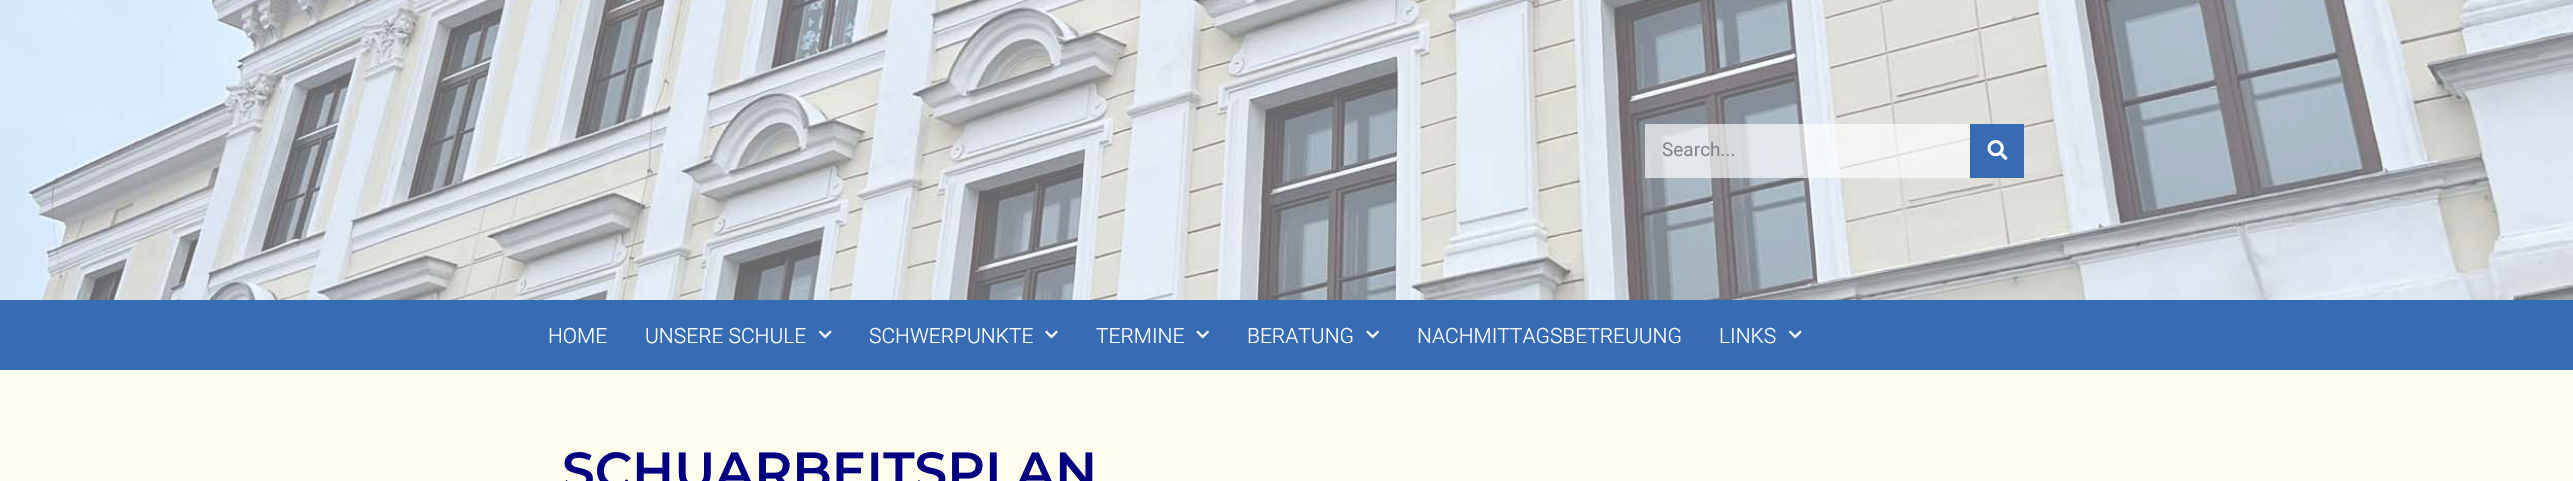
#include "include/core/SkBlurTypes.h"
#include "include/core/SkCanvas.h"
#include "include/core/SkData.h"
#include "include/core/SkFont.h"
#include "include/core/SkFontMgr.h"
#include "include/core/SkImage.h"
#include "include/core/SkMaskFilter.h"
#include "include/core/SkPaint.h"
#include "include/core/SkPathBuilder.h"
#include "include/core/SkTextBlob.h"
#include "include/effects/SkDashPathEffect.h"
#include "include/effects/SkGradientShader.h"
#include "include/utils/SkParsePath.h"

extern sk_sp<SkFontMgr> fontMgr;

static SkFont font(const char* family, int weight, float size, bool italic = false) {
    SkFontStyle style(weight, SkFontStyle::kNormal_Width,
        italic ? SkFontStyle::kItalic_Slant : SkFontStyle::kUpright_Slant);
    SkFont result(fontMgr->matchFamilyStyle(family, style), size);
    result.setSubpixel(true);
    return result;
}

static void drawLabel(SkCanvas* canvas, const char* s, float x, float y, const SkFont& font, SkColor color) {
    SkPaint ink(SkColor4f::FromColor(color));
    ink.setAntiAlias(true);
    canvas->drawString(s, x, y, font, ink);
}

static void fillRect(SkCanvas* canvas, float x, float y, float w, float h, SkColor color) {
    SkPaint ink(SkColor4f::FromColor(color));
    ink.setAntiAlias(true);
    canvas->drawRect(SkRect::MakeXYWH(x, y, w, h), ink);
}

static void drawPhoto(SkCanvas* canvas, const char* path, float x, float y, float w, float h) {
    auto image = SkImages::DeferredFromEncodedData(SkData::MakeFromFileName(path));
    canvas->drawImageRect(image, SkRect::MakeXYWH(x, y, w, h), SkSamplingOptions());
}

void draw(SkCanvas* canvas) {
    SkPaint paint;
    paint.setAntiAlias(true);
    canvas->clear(0xFFFFFDEC);
    drawPhoto(canvas, "assets/img1.png", 0, 0, 2573, 300);
    fillRect(canvas, 1645, 124, 325, 54, 0xA8FFFFFF);
    SkFont font1 = font("Roboto", 400, 19);
    drawLabel(canvas, "Search...", 1662, 156, font1, 0xFF7F8489);
    fillRect(canvas, 1970, 124, 54, 54, 0xFF376BB4);
    drawPhoto(canvas, "assets/img2.png", 1987, 140, 21, 20);
    fillRect(canvas, 0, 300, 2573, 70, 0xFF376BB4);
    SkFont font2 = font("Roboto", 300, 21);
    drawLabel(canvas, "HOME", 548, 343, font2, 0xFFFFFFFF);
    drawLabel(canvas, "UNSERE SCHULE", 645, 343, font2, 0xFFFFFFFF);
    drawPhoto(canvas, "assets/img3.png", 819, 330, 13, 9);
    drawLabel(canvas, "SCHWERPUNKTE", 869, 343, font2, 0xFFFFFFFF);
    drawPhoto(canvas, "assets/img4.png", 1045, 330, 13, 9);
    drawLabel(canvas, "TERMINE", 1096, 343, font2, 0xFFFFFFFF);
    drawPhoto(canvas, "assets/img5.png", 1196, 330, 13, 9);
    drawLabel(canvas, "BERATUNG", 1247, 343, font2, 0xFFFFFFFF);
    drawPhoto(canvas, "assets/img5.png", 1366, 330, 13, 9);
    drawLabel(canvas, "NACHMITTAGSBETREUUNG", 1417, 343, font2, 0xFFFFFFFF);
    drawLabel(canvas, "LINKS", 1719, 343, font2, 0xFFFFFFFF);
    drawPhoto(canvas, "assets/img3.png", 1789, 330, 13, 9);
    SkFont font3 = font("Montserrat", 600, 52);
    drawLabel(canvas, "SCHUARBEITSPLAN", 562, 489, font3, 0xFF000080);
}
